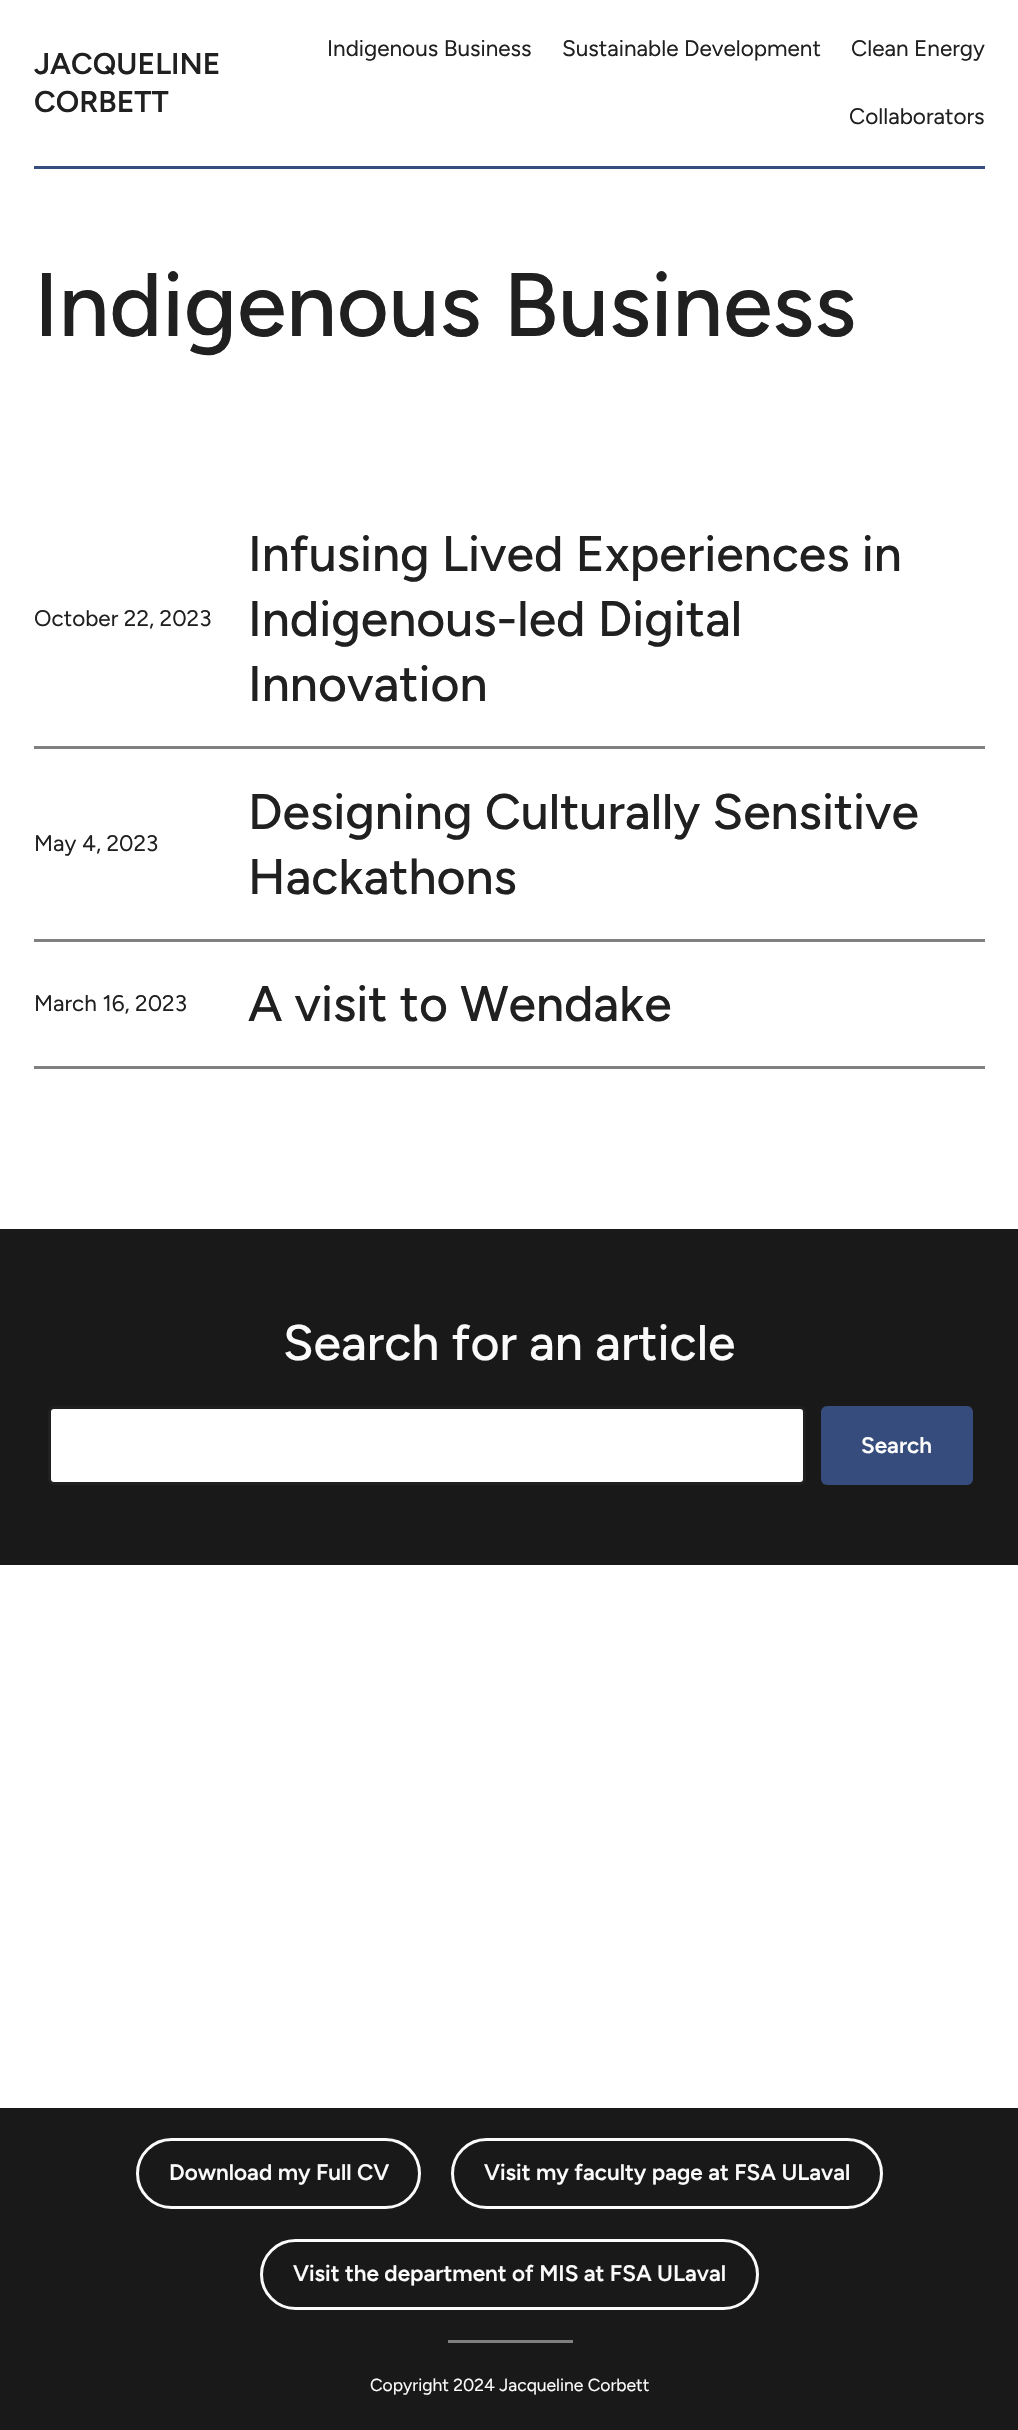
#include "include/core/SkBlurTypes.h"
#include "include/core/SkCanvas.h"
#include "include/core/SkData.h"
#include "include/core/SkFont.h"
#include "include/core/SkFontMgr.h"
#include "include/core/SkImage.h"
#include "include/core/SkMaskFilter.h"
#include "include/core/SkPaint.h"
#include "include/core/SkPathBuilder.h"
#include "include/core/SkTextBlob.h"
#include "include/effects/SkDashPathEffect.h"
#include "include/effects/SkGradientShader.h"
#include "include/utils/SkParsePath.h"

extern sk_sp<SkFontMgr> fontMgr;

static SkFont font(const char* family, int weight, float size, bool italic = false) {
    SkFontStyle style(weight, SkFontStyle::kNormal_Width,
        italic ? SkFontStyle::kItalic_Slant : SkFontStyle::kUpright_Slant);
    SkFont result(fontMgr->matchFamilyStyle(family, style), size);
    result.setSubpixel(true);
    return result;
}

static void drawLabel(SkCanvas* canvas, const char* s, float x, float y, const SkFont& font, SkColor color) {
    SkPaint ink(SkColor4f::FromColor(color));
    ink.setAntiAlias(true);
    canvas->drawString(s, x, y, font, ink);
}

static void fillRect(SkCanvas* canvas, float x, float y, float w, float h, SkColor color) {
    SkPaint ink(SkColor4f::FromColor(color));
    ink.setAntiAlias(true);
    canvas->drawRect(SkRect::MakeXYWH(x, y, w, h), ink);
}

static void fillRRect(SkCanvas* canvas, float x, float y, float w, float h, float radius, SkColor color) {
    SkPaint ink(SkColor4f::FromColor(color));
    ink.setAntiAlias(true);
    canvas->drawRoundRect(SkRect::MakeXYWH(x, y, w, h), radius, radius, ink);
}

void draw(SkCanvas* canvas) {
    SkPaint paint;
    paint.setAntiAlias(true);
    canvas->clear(0xFFFFFFFF);
    fillRect(canvas, 34, 166, 951, 3, 0xFF354C7C);
    SkFont font1 = font("Figtree", 600, 30);
    drawLabel(canvas, "JACQUELINE", 34, 74, font1, 0xFF202020);
    drawLabel(canvas, "CORBETT", 34, 112, font1, 0xFF202020);
    SkFont font2 = font("Figtree", 400, 22.5f);
    drawLabel(canvas, "Indigenous Business", 327, 56, font2, 0xFF202020);
    drawLabel(canvas, "Sustainable Development", 562, 56, font2, 0xFF202020);
    drawLabel(canvas, "Clean Energy", 851, 56, font2, 0xFF202020);
    drawLabel(canvas, "Collaborators", 849, 124, font2, 0xFF202020);
    SkFont font3 = font("Figtree", 500, 90);
    drawLabel(canvas, "Indigenous Business", 34, 336, font3, 0xFF202020);
    drawLabel(canvas, "October 22, 2023", 34, 626, font2, 0xFF202020);
    SkFont font4 = font("Figtree", 500, 50);
    drawLabel(canvas, "Infusing Lived Experiences in", 248, 571, font4, 0xFF202020);
    drawLabel(canvas, "Indigenous-led Digital", 248, 636, font4, 0xFF202020);
    drawLabel(canvas, "Innovation", 248, 701, font4, 0xFF202020);
    fillRect(canvas, 34, 746, 951, 3, 0xFF808080);
    drawLabel(canvas, "May 4, 2023", 34, 851, font2, 0xFF202020);
    drawLabel(canvas, "Designing Culturally Sensitive", 248, 829, font4, 0xFF202020);
    drawLabel(canvas, "Hackathons", 248, 894, font4, 0xFF202020);
    fillRect(canvas, 34, 939, 951, 3, 0xFF808080);
    drawLabel(canvas, "March 16, 2023", 34, 1011, font2, 0xFF202020);
    drawLabel(canvas, "A visit to Wendake", 248, 1021, font4, 0xFF202020);
    fillRect(canvas, 34, 1066, 951, 3, 0xFF808080);
    fillRect(canvas, 0, 1229, 1018, 336, 0xFF1A1919);
    drawLabel(canvas, "Search for an article", 283, 1360, font4, 0xFFFBFBFB);
    paint.setColor(0xFFFFFFFF);
    canvas->drawRoundRect(SkRect::MakeXYWH(49.5f, 1407.5f, 755, 76), 4.5f, 4.5f, paint);
    paint.setStroke(true);
    paint.setStrokeWidth(3);
    paint.setColor(0xFF202020);
    canvas->drawRoundRect(SkRect::MakeXYWH(49.5f, 1407.5f, 755, 76), 4.5f, 4.5f, paint);
    fillRRect(canvas, 821, 1406, 152, 79, 6, 0xFF354C7C);
    SkFont font5 = font("Figtree", 600, 22.5f);
    drawLabel(canvas, "Search", 861, 1453, font5, 0xFFFBFBFB);
    fillRect(canvas, 0, 2108, 1018, 322, 0xFF1A1919);
    paint.setColor(0xFFFBFBFB);
    canvas->drawRoundRect(SkRect::MakeXYWH(137.5f, 2139.5f, 282, 68), 34, 34, paint);
    drawLabel(canvas, "Download my Full CV", 169, 2180, font5, 0xFFFBFBFB);
    canvas->drawRoundRect(SkRect::MakeXYWH(452.5f, 2139.5f, 429, 68), 34, 34, paint);
    drawLabel(canvas, "Visit my faculty page at FSA ULaval", 484, 2180, font5, 0xFFFBFBFB);
    canvas->drawRoundRect(SkRect::MakeXYWH(261.5f, 2240.5f, 496, 68), 34, 34, paint);
    drawLabel(canvas, "Visit the department of MIS at FSA ULaval", 293, 2281, font5, 0xFFFBFBFB);
    fillRect(canvas, 448, 2340, 125, 3, 0xFF808080);
    SkFont font6 = font("Figtree", 400, 17.5f);
    drawLabel(canvas, "Copyright 2024 Jacqueline Corbett", 370, 2391, font6, 0xFFFBFBFB);
}
